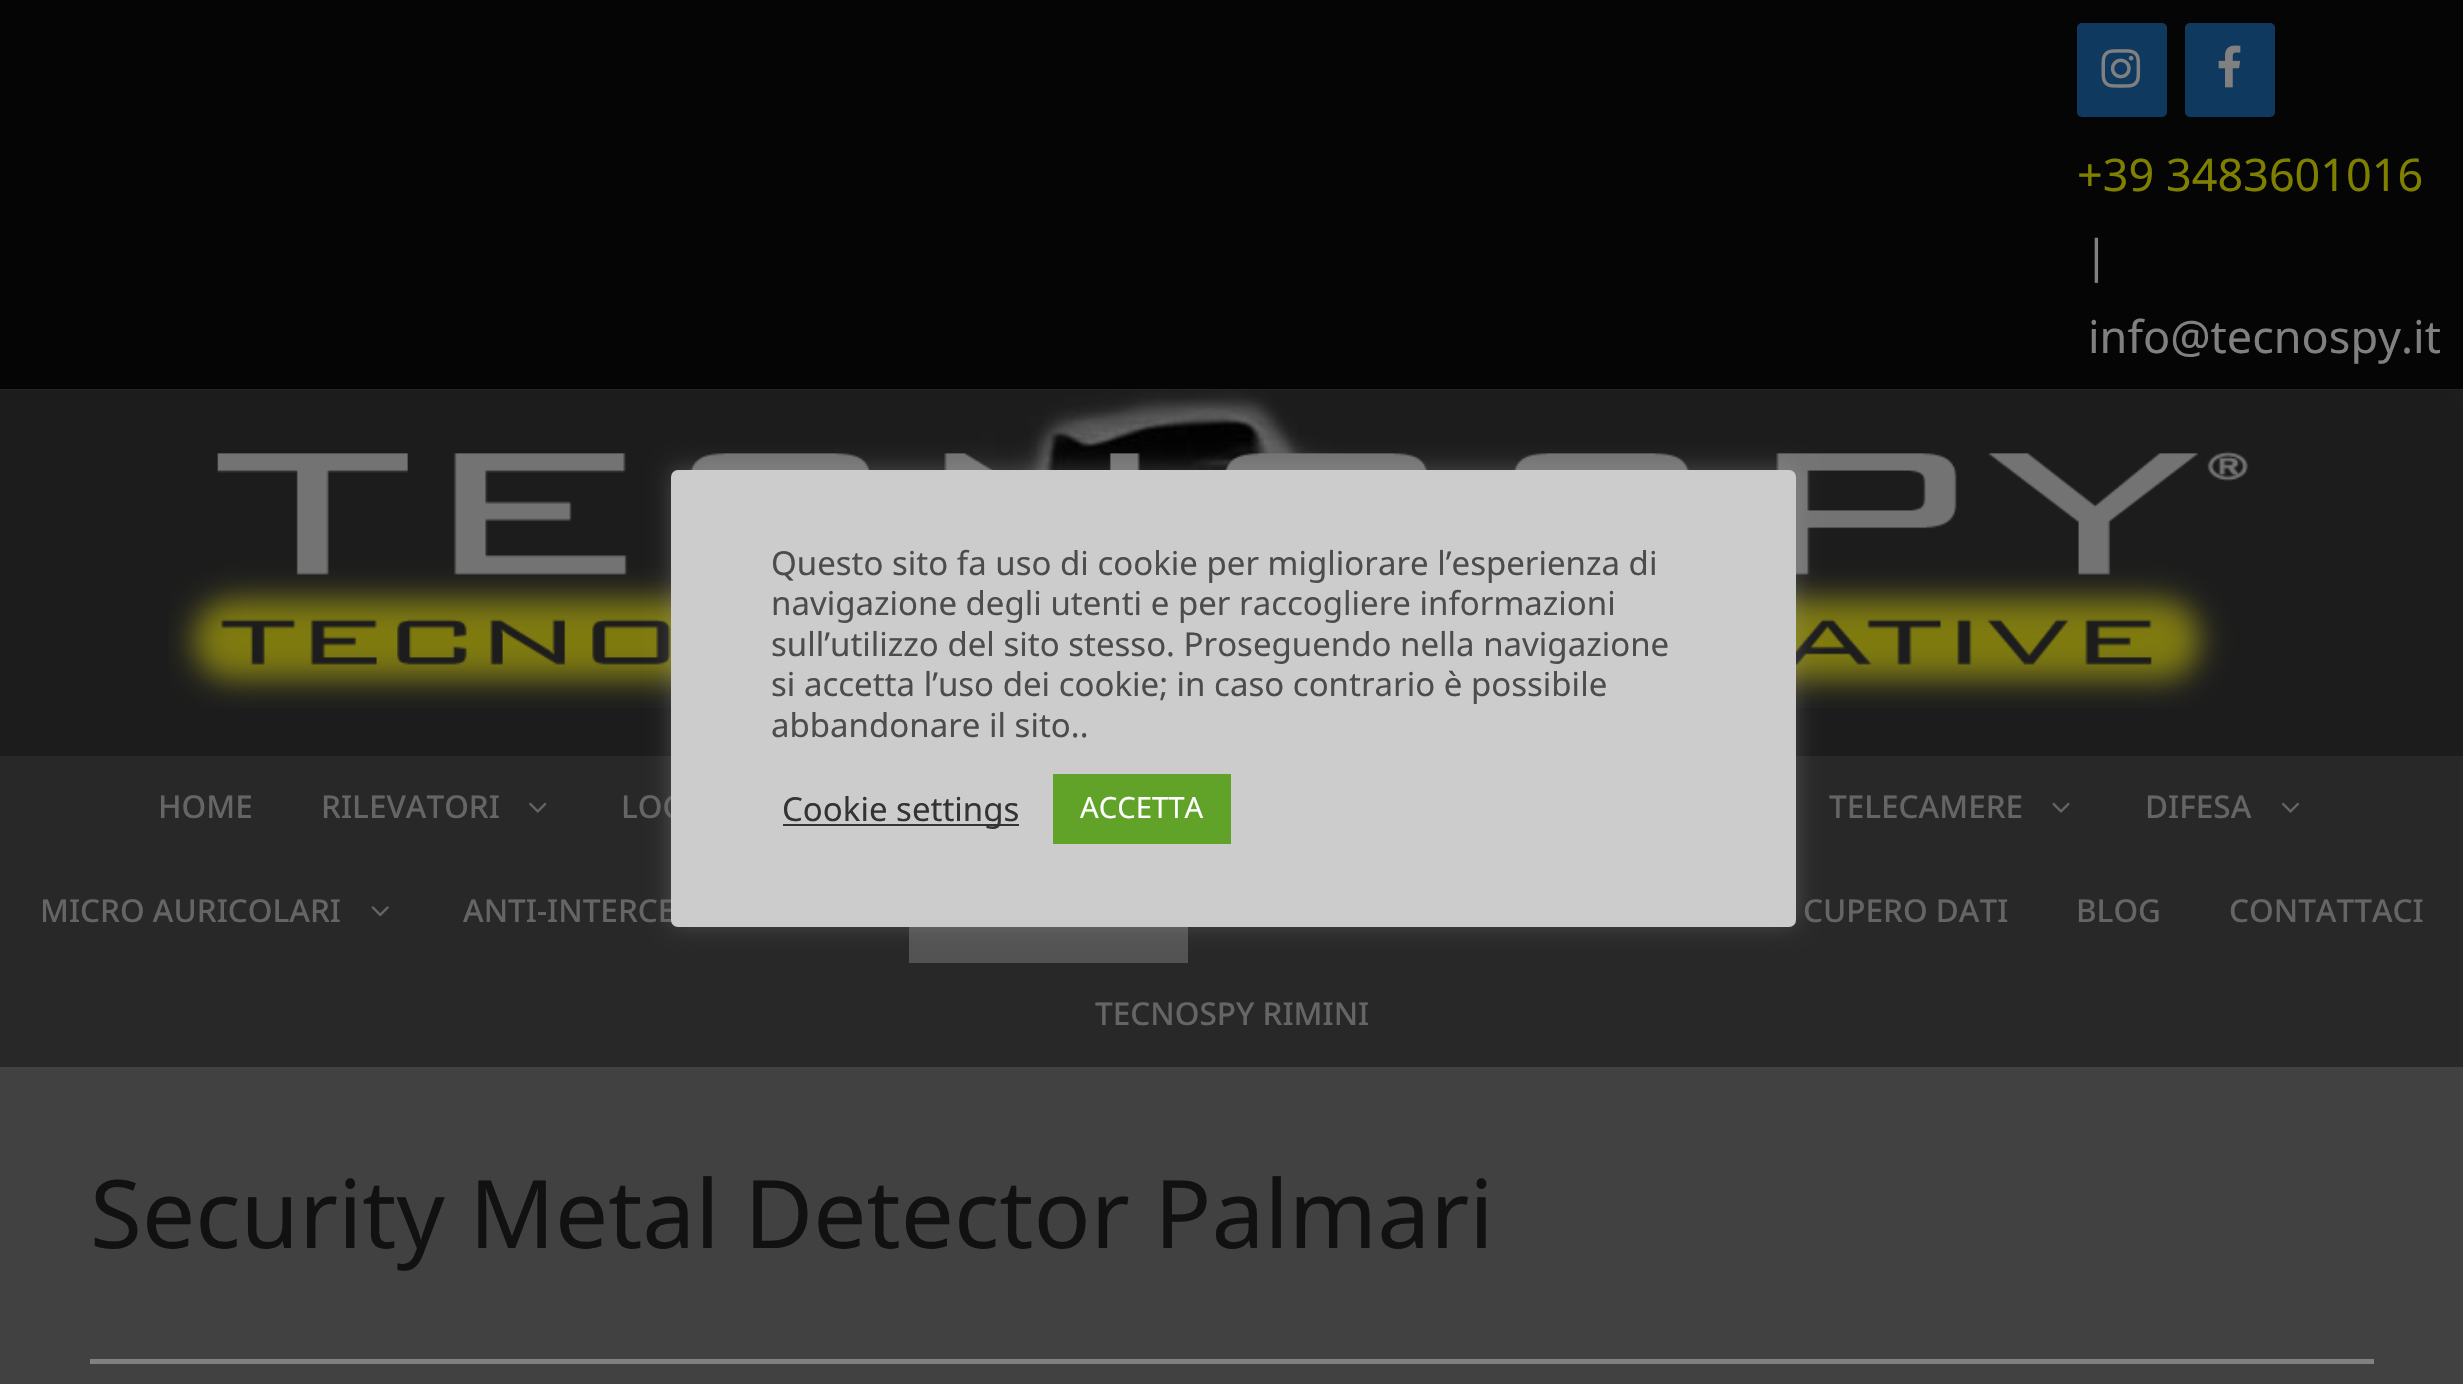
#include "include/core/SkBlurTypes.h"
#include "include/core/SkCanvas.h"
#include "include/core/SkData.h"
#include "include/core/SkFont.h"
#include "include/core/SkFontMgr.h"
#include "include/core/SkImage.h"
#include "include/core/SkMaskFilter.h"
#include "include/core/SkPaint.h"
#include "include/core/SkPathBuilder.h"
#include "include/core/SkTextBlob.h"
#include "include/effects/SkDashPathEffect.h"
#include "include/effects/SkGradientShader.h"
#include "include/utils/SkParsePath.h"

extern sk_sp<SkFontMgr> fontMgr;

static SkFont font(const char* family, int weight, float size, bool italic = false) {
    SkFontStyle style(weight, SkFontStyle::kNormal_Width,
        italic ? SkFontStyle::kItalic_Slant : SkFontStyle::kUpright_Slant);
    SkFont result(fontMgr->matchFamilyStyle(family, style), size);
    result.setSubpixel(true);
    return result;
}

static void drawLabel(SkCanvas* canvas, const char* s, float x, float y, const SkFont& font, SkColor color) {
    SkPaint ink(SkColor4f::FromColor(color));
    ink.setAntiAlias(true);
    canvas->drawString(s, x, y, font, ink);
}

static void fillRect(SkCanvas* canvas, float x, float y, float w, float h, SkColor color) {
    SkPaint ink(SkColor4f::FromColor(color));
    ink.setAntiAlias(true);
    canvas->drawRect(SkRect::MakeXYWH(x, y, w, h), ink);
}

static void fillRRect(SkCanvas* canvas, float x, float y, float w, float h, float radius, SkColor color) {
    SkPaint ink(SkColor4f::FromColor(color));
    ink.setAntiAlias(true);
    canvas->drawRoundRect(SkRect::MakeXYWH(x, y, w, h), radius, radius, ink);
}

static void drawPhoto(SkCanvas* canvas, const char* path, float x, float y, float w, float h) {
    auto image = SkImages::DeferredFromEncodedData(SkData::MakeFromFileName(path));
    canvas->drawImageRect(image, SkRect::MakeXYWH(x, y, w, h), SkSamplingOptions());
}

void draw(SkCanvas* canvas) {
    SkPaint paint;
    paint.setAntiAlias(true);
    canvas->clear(0xFF414141);
    fillRect(canvas, 0, 0, 2463, 389, 0xFF050505);
    fillRRect(canvas, 2077, 23, 90, 94, 5, 0xFF0F395F);
    drawPhoto(canvas, "assets/img1.png", 2101, 49, 40, 39);
    fillRRect(canvas, 2185, 23, 90, 94, 5, 0xFF0F395F);
    drawPhoto(canvas, "assets/img2.png", 2218, 45, 23, 43);
    SkFont font1 = font("Noto Sans", 400, 45);
    drawLabel(canvas, "+39 3483601016", 2077, 191, font1, 0xFF808000);
    drawLabel(canvas, "|", 2084, 272, font1, 0xFF808080);
    drawLabel(canvas, "info@tecnospy.it", 2088, 353, font1, 0xFF808080);
    drawPhoto(canvas, "assets/img3.png", 0, 389, 2463, 367);
    drawPhoto(canvas, "assets/img4.png", 168, 451, 2081, 257);
    fillRect(canvas, 0, 756, 2463, 311, 0xFF282828);
    fillRect(canvas, 909, 927, 279, 36, 0xFF535353);
    paint.setColor(0x4DACABAB);
    paint.setMaskFilter(SkMaskFilter::MakeBlur(kNormal_SkBlurStyle, 11));
    canvas->drawRoundRect(SkRect::MakeXYWH(671, 468, 1125, 457), 7, 7, paint);
    paint.setMaskFilter(nullptr);
    SkFont font2 = font("Noto Sans", 500, 31.5f);
    drawLabel(canvas, "LOC", 621, 818, font2, 0xFF656565);
    drawLabel(canvas, "ANTI-INTERCE", 463, 922, font2, 0xFF656565);
    fillRRect(canvas, 671, 470, 1125, 457, 7, 0xFFCCCCCC);
    SkFont font3 = font("Noto Sans", 400, 33);
    drawLabel(canvas, "Questo sito fa uso di cookie per migliorare l’esperienza di", 771, 575, font3, 0xFF4C4C4C);
    drawLabel(canvas, "navigazione degli utenti e per raccogliere informazioni", 771, 615, font3, 0xFF4C4C4C);
    drawLabel(canvas, "sull’utilizzo del sito stesso. Proseguendo nella navigazione", 771, 656, font3, 0xFF4C4C4C);
    drawLabel(canvas, "si accetta l’uso dei cookie; in caso contrario è possibile", 771, 696, font3, 0xFF4C4C4C);
    drawLabel(canvas, "abbandonare il sito..", 771, 737, font3, 0xFF4C4C4C);
    fillRect(canvas, 783, 824, 236, 2, 0xFF333333);
    drawLabel(canvas, "Cookie settings", 782, 821, font3, 0xFF333333);
    fillRect(canvas, 1053, 774, 178, 70, 0xFF61A229);
    SkFont font4 = font("Noto Sans", 400, 29.25f);
    drawLabel(canvas, "ACCETTA", 1080, 818, font4, 0xFFFFFFFF);
    drawLabel(canvas, "HOME", 158, 818, font2, 0xFF656565);
    drawLabel(canvas, "RILEVATORI", 321, 818, font2, 0xFF656565);
    drawPhoto(canvas, "assets/img5.png", 529, 802, 18, 11);
    drawLabel(canvas, "TELECAMERE", 1829, 818, font2, 0xFF656565);
    drawPhoto(canvas, "assets/img6.png", 2052, 802, 18, 11);
    drawLabel(canvas, "DIFESA", 2145, 818, font2, 0xFF656565);
    drawPhoto(canvas, "assets/img7.png", 2281, 802, 19, 11);
    drawLabel(canvas, "MICRO AURICOLARI", 40, 922, font2, 0xFF656565);
    drawPhoto(canvas, "assets/img8.png", 371, 906, 18, 11);
    drawLabel(canvas, "CUPERO DATI", 1803, 922, font2, 0xFF656565);
    drawLabel(canvas, "BLOG", 2076, 922, font2, 0xFF656565);
    drawLabel(canvas, "CONTATTACI", 2229, 922, font2, 0xFF656565);
    drawLabel(canvas, "TECNOSPY RIMINI", 1095, 1025, font2, 0xFF656565);
    SkFont font5 = font("Noto Sans", 400, 94.5f);
    drawLabel(canvas, "Security Metal Detector Palmari", 90, 1248, font5, 0xFF111111);
    fillRect(canvas, 90, 1359, 2284, 5, 0xFF808080);
}
